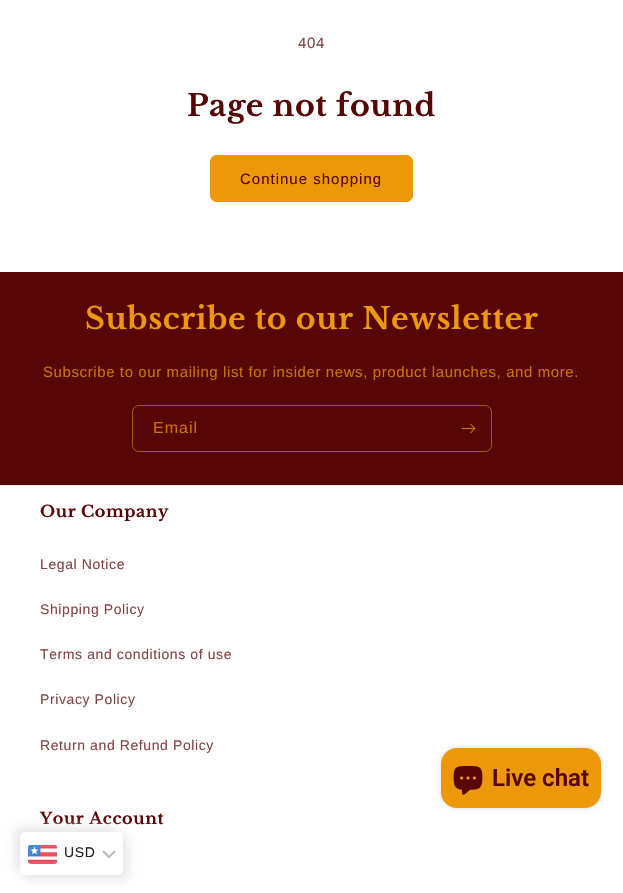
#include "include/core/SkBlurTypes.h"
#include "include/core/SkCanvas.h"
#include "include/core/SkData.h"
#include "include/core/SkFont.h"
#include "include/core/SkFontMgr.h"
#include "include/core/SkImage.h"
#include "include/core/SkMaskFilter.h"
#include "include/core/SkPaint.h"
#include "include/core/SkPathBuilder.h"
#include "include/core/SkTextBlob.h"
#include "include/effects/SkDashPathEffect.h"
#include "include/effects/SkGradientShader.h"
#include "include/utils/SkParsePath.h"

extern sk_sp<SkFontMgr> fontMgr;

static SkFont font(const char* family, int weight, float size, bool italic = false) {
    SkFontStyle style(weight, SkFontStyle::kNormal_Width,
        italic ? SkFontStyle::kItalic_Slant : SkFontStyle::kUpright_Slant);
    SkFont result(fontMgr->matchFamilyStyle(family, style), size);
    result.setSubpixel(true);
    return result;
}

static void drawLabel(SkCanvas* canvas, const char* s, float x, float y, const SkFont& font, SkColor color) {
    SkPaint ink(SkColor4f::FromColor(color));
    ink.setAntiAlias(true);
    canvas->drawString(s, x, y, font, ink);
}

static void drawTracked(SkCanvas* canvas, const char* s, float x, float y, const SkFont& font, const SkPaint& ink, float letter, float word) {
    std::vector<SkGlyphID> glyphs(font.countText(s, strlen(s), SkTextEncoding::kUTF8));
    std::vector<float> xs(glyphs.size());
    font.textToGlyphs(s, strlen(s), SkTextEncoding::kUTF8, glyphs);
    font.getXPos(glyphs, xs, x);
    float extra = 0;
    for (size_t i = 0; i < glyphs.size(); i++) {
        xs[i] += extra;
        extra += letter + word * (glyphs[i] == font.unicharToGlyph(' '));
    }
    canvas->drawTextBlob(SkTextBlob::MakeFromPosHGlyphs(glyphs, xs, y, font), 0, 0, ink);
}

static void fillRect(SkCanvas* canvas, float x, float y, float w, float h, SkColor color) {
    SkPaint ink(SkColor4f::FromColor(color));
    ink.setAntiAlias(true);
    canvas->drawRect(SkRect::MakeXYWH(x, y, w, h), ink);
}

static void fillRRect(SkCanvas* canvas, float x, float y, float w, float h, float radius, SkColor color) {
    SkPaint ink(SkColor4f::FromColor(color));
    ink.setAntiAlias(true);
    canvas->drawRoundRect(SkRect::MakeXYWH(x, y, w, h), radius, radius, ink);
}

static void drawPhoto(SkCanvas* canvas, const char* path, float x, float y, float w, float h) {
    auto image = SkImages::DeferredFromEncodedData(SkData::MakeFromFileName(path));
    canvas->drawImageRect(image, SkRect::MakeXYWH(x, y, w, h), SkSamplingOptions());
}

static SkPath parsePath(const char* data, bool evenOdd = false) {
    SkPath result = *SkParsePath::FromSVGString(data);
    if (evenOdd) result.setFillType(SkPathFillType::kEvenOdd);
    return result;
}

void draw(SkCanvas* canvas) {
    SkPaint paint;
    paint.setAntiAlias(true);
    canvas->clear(0xFFFFFFFF);
    SkFont font1 = font("Arimo", 400, 15);
    paint.setColor(0xFF824444);
    drawTracked(canvas, "404", 298, 48, font1, paint, 0.6f, 0);
    SkFont font2 = font("Libre Baskerville", 700, 30);
    paint.setColor(0xFF580505);
    drawTracked(canvas, "Page not found", 187, 116, font2, paint, 0.6f, 0);
    fillRRect(canvas, 210, 155, 203, 47, 7, 0xFFEC9809);
    paint.setStroke(true);
    paint.setStrokeWidth(1);
    paint.setColor(0xFFEC9809);
    canvas->drawRoundRect(SkRect::MakeXYWH(210.5f, 155.5f, 202, 46), 6.5f, 6.5f, paint);
    paint.setStroke(false);
    paint.setColor(0xFF580505);
    drawTracked(canvas, "Continue shopping", 240, 184, font1, paint, 1, 0);
    fillRect(canvas, 0, 272, 623, 213, 0xFF580505);
    paint.setColor(0xFFEC9809);
    drawTracked(canvas, "Subscribe to our Newsletter", 85, 329, font2, paint, 0.6f, 0);
    paint.setColor(0xFFC77308);
    drawTracked(canvas, "Subscribe to our mailing list for insider news, product launches, and more.", 43, 377, font1, paint, 0.6f, 0);
    paint.setStroke(true);
    paint.setColor(0xFFA95607);
    canvas->drawRoundRect(SkRect::MakeXYWH(132.5f, 405.5f, 359, 46), 6.5f, 6.5f, paint);
    SkFont font3 = font("Arimo", 400, 16);
    paint.setStroke(false);
    paint.setColor(0xFFC77308);
    drawTracked(canvas, "Email", 153, 433, font3, paint, 1, 0);
    drawPhoto(canvas, "assets/img1.png", 461, 423, 15, 11);
    fillRect(canvas, 0, 485, 623, 1, 0xFFF2EBEB);
    SkFont font4 = font("Libre Baskerville", 700, 16);
    paint.setColor(0xFF580505);
    drawTracked(canvas, "Our Company", 40, 517, font4, paint, 0.6f, 0);
    SkFont font5 = font("Arimo", 400, 14);
    paint.setColor(0xFF824444);
    drawTracked(canvas, "Legal Notice", 40, 569, font5, paint, 0.6f, 0);
    drawTracked(canvas, "Shipping Policy", 40, 614, font5, paint, 0.6f, 0);
    drawTracked(canvas, "Terms and conditions of use", 40, 659, font5, paint, 0.6f, 0);
    drawTracked(canvas, "Privacy Policy", 40, 704, font5, paint, 0.6f, 0);
    drawTracked(canvas, "Return and Refund Policy", 40, 750, font5, paint, 0.6f, 0);
    paint.setColor(0xFF580505);
    drawTracked(canvas, "Your Account", 40, 824, font4, paint, 0.6f, 0);
    paint.setColor(0x26000000);
    paint.setMaskFilter(SkMaskFilter::MakeBlur(kNormal_SkBlurStyle, 2.5f));
    canvas->drawRoundRect(SkRect::MakeXYWH(441, 748, 160, 60), 16, 16, paint);
    paint.setMaskFilter(nullptr);
    fillRRect(canvas, 441, 748, 160, 60, 16, 0xFFEC9809);
    drawPhoto(canvas, "assets/img2.png", 453, 766, 30, 29);
    SkFont font6 = font("Roboto", 600, 24);
    drawLabel(canvas, "Live chat", 492, 786, font6, 0xFF580505);
    paint.setColor(0xFFE8E8E8);
    paint.setMaskFilter(SkMaskFilter::MakeBlur(kNormal_SkBlurStyle, 5));
    canvas->drawRoundRect(SkRect::MakeXYWH(15, 827, 103, 43), 5, 5, paint);
    paint.setMaskFilter(nullptr);
    paint.setMaskFilter(SkMaskFilter::MakeBlur(kNormal_SkBlurStyle, 5));
    canvas->drawRoundRect(SkRect::MakeXYWH(25, 837, 103, 43), 5, 5, paint);
    paint.setMaskFilter(nullptr);
    fillRRect(canvas, 20, 832, 103, 43, 5, 0xFFFFFFFF);
    drawPhoto(canvas, "assets/img3.png", 28, 845, 29, 19);
    paint.setColor(0xFF1E1E1E);
    drawTracked(canvas, "USD", 64, 857, font5, paint, 0.6f, 0);
    paint.setStroke(true);
    paint.setStrokeWidth(1.8f);
    paint.setStrokeCap(SkPaint::kRound_Cap);
    paint.setStrokeJoin(SkPaint::kRound_Join);
    paint.setColor(0xFFB7B7B7);
    canvas->drawPath(parsePath("M103.5 851.5L109 857L114.5 851.5"), paint);
}
